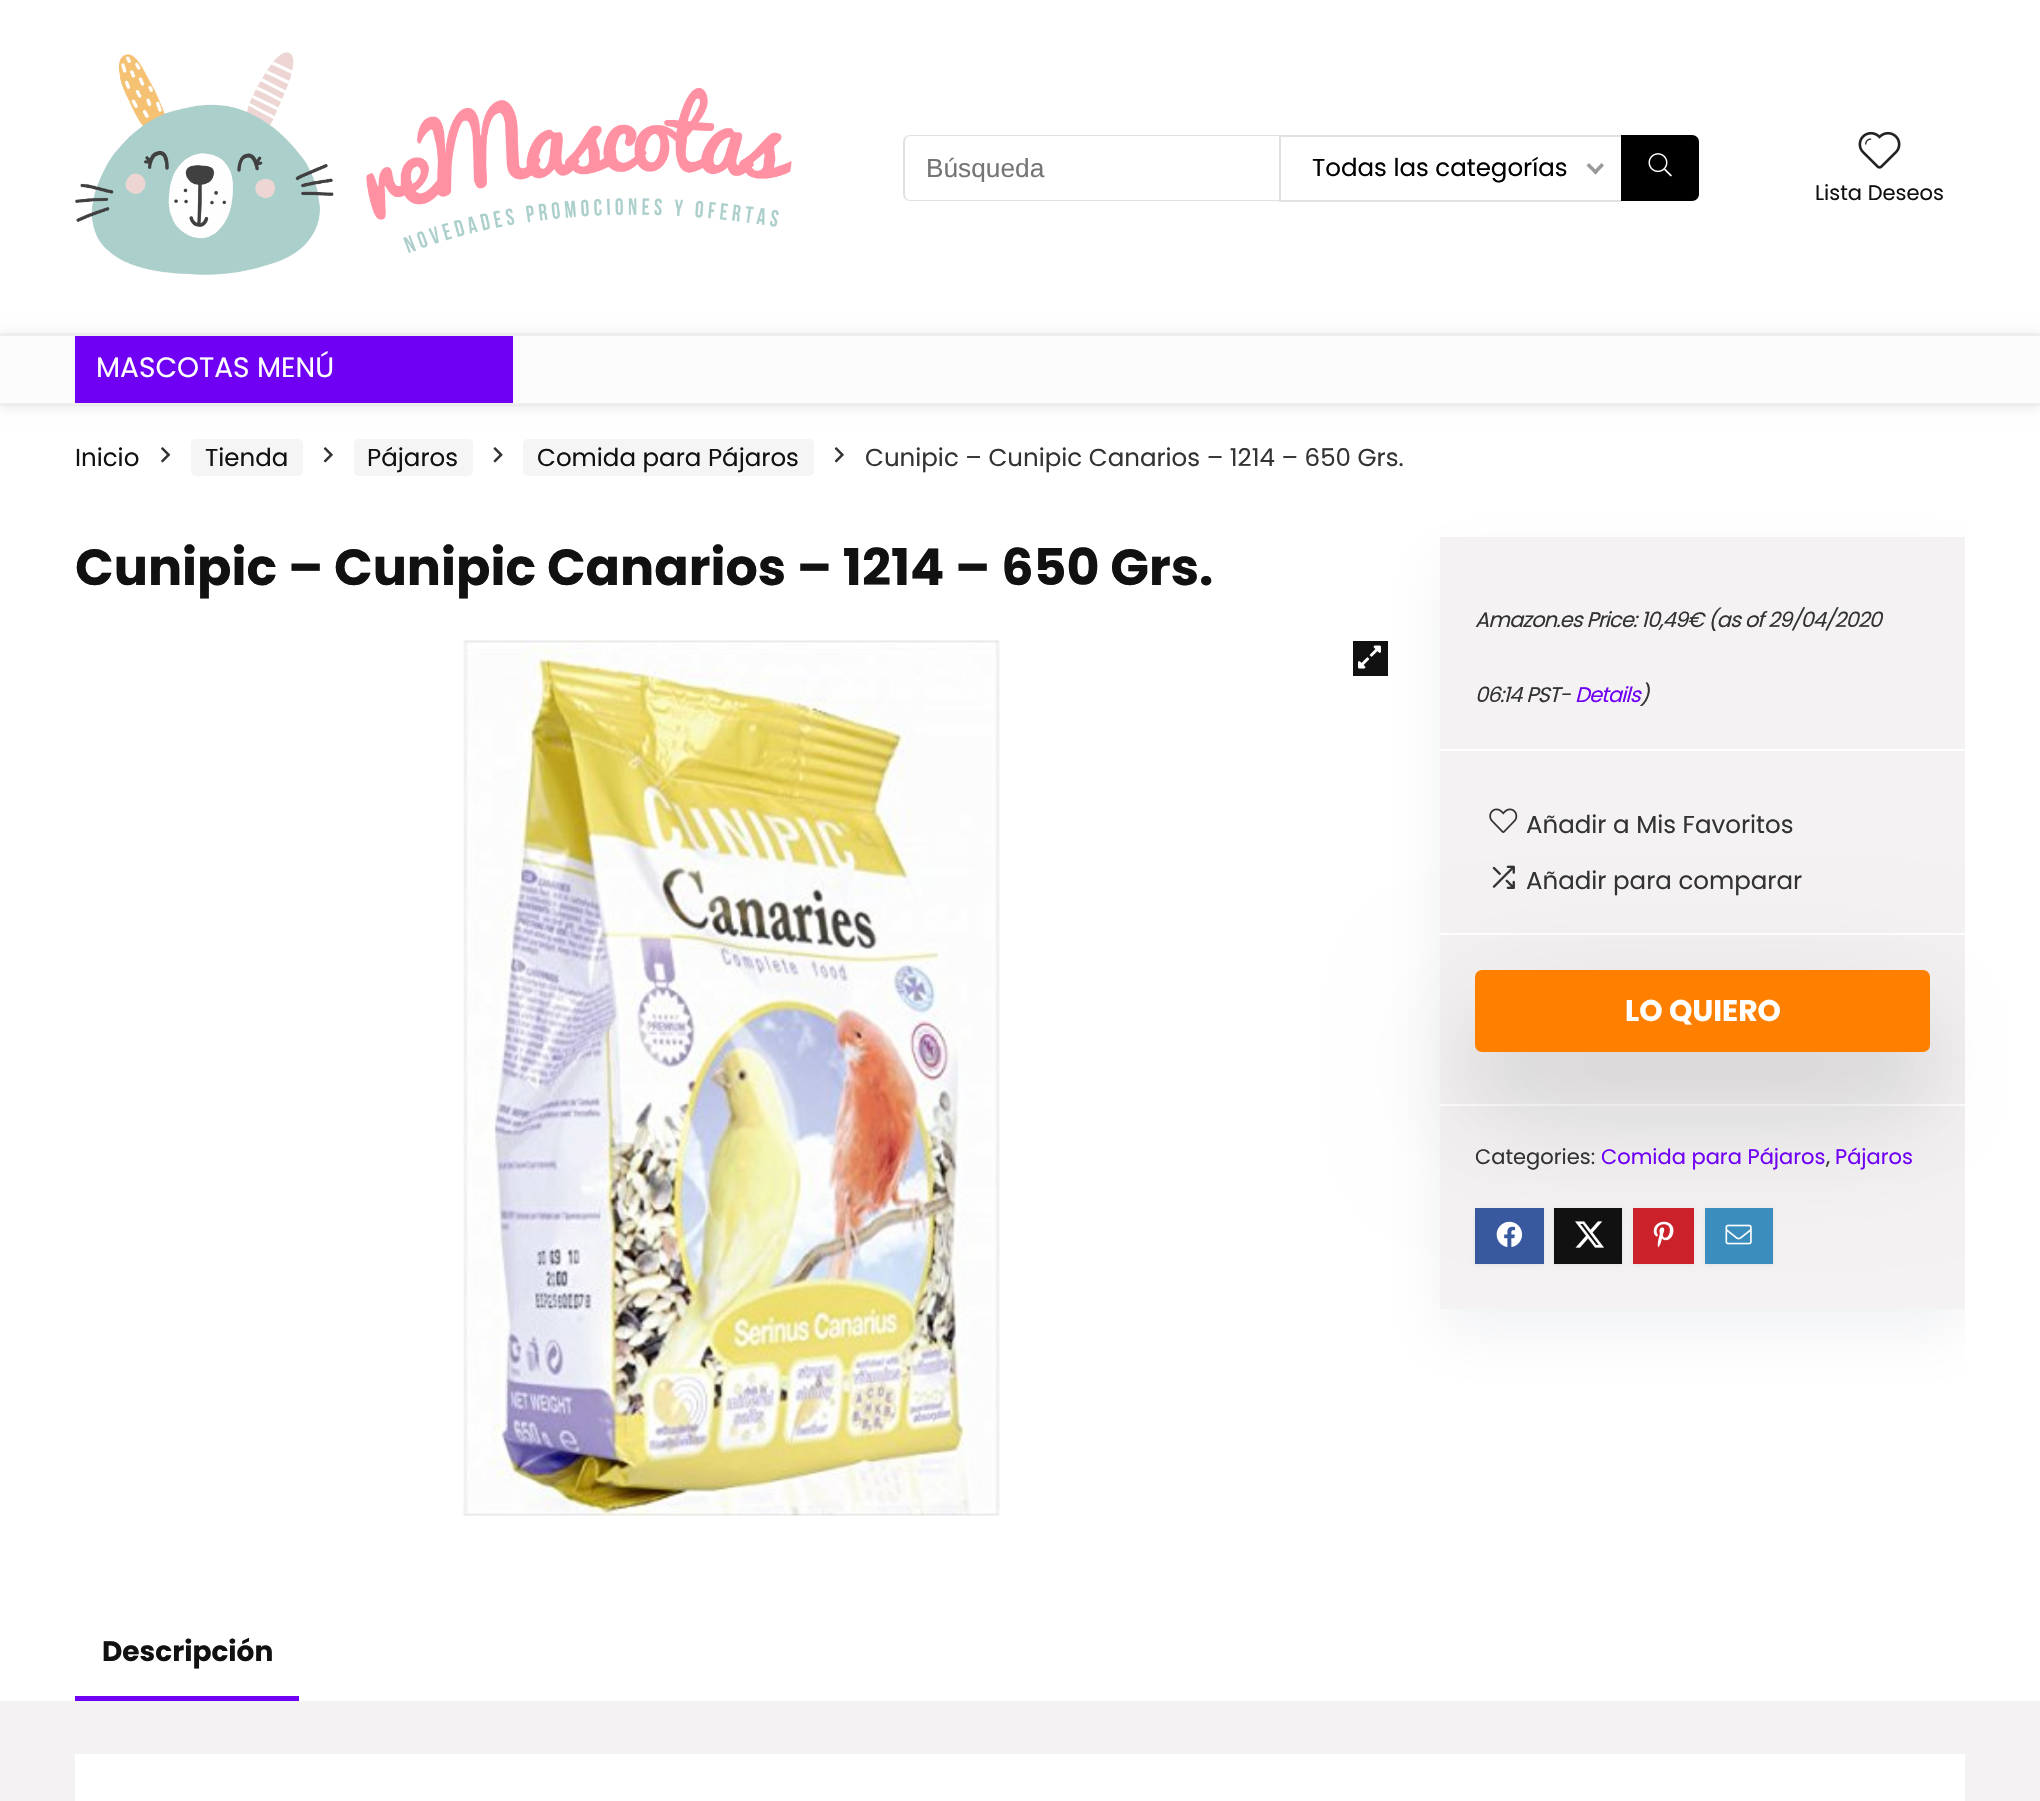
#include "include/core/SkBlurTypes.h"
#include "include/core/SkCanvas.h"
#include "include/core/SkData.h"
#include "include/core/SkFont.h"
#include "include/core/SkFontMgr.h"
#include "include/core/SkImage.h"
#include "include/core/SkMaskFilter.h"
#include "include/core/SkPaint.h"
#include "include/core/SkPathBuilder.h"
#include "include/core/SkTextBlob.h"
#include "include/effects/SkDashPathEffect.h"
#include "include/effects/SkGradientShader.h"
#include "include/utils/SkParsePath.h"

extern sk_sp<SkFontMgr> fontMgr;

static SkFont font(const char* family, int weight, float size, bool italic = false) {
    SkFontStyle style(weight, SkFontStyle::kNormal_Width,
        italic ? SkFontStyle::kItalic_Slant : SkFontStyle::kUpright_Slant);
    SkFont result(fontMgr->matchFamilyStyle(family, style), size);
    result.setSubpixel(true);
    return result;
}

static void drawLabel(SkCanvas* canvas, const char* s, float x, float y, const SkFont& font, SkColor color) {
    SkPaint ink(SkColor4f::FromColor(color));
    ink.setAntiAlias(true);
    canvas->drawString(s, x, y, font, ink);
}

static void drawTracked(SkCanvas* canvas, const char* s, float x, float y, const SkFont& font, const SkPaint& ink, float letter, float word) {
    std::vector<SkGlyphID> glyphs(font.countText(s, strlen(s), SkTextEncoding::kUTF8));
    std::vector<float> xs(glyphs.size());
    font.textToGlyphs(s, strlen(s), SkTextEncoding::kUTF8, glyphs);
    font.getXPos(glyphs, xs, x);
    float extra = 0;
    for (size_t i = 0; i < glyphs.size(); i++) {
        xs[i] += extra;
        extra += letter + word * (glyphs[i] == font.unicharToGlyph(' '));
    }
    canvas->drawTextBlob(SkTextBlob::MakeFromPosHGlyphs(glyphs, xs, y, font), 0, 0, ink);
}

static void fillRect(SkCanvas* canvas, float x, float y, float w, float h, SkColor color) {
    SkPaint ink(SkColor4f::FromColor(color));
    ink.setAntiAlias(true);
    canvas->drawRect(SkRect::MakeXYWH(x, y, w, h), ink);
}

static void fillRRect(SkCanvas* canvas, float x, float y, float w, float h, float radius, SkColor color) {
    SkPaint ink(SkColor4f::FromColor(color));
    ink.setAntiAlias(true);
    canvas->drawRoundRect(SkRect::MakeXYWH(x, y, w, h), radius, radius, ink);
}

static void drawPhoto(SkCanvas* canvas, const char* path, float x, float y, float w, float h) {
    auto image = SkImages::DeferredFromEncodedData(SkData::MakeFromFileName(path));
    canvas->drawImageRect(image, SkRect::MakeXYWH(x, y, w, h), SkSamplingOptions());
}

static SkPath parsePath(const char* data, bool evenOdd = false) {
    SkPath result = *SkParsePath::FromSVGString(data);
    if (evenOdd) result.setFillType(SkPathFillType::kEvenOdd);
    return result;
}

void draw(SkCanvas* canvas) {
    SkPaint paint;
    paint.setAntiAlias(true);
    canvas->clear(0xFFFFFFFF);
    drawPhoto(canvas, "assets/img1.png", 75, 52, 717, 223);
    paint.setColor(0xFFE1E1E1);
    canvas->drawPath(parsePath("M910 135H1279V201H910C906 201 903 198 903 194V142C903 138 906 135 910 135ZM910 136H1279V200H910C907 200 905 197 905 194V142C905 139 907 136 910 136Z", true), paint);
    canvas->save();
    canvas->clipRect(SkRect::MakeXYWH(926, 152, 332, 30));
    SkFont font1 = font("Liberation Sans", 400, 26.25f);
    drawLabel(canvas, "Búsqueda", 926, 177, font1, 0xFF757575);
    canvas->restore();
    fillRect(canvas, 1279, 135, 342, 2, 0xFFE1E1E1);
    fillRect(canvas, 1279, 200, 342, 2, 0xFFE1E1E1);
    fillRect(canvas, 1279, 135, 2, 66, 0xFFE1E1E1);
    SkFont font2 = font("Poppins", 400, 24.5f);
    drawLabel(canvas, "Todas las categorías", 1312, 176, font2, 0xFF000000);
    paint.setColor(0xFF999999);
    canvas->drawPath(parsePath("M1601.5 163L1604 165.5L1595.5 174.5L1593 172Z"), paint);
    canvas->drawPath(parsePath("M1589 163L1598 172L1595.5 174.5L1586.5 165.5Z"), paint);
    paint.setColor(0xFF000000);
    canvas->drawPath(parsePath("M1621 135H1692C1696 135 1699 138 1699 142V194C1699 198 1696 201 1692 201H1621Z"), paint);
    drawPhoto(canvas, "assets/img2.png", 1648, 153, 24, 24);
    drawPhoto(canvas, "assets/img3.png", 1858, 131, 43, 38);
    SkFont font3 = font("Poppins", 400, 21);
    drawLabel(canvas, "Lista Deseos", 1815, 200, font3, 0xFF111111);
    paint.setStroke(true);
    paint.setStrokeWidth(2);
    paint.setColor(0xFFF7F7F7);
    canvas->drawRect(SkRect::MakeXYWH(-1, 334, 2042, 71), paint);
    paint.setStroke(false);
    paint.setColor(0x1A000000);
    paint.setMaskFilter(SkMaskFilter::MakeBlur(kNormal_SkBlurStyle, 7));
    canvas->drawRect(SkRect::MakeXYWH(0, 336, 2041, 70), paint);
    paint.setMaskFilter(nullptr);
    fillRect(canvas, 0, 336, 2040, 67, 0xFFFCFCFC);
    fillRect(canvas, 0, 334, 2040, 2, 0xFFEEEEEE);
    fillRect(canvas, 0, 403, 2040, 2, 0xFFEEEEEE);
    fillRect(canvas, 75, 336, 438, 67, 0xFF7000F4);
    SkFont font4 = font("Poppins", 400, 28);
    drawLabel(canvas, "MASCOTAS MENÚ", 96, 377, font4, 0xFFFFFFFF);
    drawLabel(canvas, "Inicio", 75, 466, font2, 0xFF111111);
    drawPhoto(canvas, "assets/img4.png", 161, 447, 10, 16);
    fillRRect(canvas, 191, 439, 112, 37, 5, 0xFFF5F5F5);
    drawLabel(canvas, "Tienda", 205, 466, font2, 0xFF111111);
    drawPhoto(canvas, "assets/img5.png", 323, 447, 10, 16);
    fillRRect(canvas, 354, 439, 119, 37, 5, 0xFFF5F5F5);
    drawLabel(canvas, "Pájaros", 367, 466, font2, 0xFF111111);
    drawPhoto(canvas, "assets/img6.png", 493, 447, 10, 16);
    fillRRect(canvas, 523, 439, 291, 37, 5, 0xFFF5F5F5);
    drawLabel(canvas, "Comida para Pájaros", 537, 466, font2, 0xFF111111);
    drawPhoto(canvas, "assets/img5.png", 834, 447, 10, 16);
    drawLabel(canvas, "Cunipic – Cunipic Canarios – 1214 – 650 Grs.", 865, 466, font2, 0xFF333333);
    SkFont font5 = font("Poppins", 700, 50.75f);
    drawLabel(canvas, "Cunipic – Cunipic Canarios – 1214 – 650 Grs.", 75, 585, font5, 0xFF111111);
    drawPhoto(canvas, "assets/img7.png", 462, 640, 538, 876);
    canvas->save();
    canvas->clipRect(SkRect::MakeXYWH(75, 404, 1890, 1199));
    paint.setColor(0x1A777B92);
    paint.setMaskFilter(SkMaskFilter::MakeBlur(kNormal_SkBlurStyle, 26));
    canvas->drawRect(SkRect::MakeXYWH(1440, 564, 525, 771), paint);
    paint.setMaskFilter(nullptr);
    canvas->restore();
    fillRect(canvas, 1353, 641, 35, 35, 0xFF111111);
    drawPhoto(canvas, "assets/img8.png", 1358, 645, 23, 24);
    fillRect(canvas, 1440, 537, 525, 772, 0xFFF4F2F3);
    SkFont font6 = font("Poppins", 400, 21, true);
    paint.setColor(0xFF333333);
    drawTracked(canvas, "Amazon.es Price: 10,49€ (as of 29/04/2020", 1475, 627, font6, paint, -0.9f, 0);
    drawTracked(canvas, "06:14 PST-", 1475, 702, font6, paint, -0.9f, 0);
    paint.setColor(0xFF7000F4);
    drawTracked(canvas, "Details", 1575, 702, font6, paint, -0.9f, 0);
    paint.setColor(0xFF333333);
    drawTracked(canvas, ")", 1640, 702, font6, paint, -0.9f, 0);
    fillRect(canvas, 1440, 749, 525, 2, 0xFFFFFFFF);
    drawPhoto(canvas, "assets/img9.png", 1489, 808, 29, 25);
    drawLabel(canvas, "Añadir a Mis Favoritos", 1526, 833, font2, 0xFF333333);
    drawPhoto(canvas, "assets/img10.png", 1492, 865, 23, 24);
    drawLabel(canvas, "Añadir para comparar", 1526, 889, font2, 0xFF333333);
    fillRect(canvas, 1440, 933, 525, 2, 0xFFFFFFFF);
    fillRect(canvas, 1440, 1104, 525, 2, 0xFFFFFFFF);
    canvas->save();
    canvas->clipRect(SkRect::MakeXYWH(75, 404, 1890, 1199));
    paint.setColor(0x1F000000);
    paint.setMaskFilter(SkMaskFilter::MakeBlur(kNormal_SkBlurStyle, 70));
    canvas->drawRoundRect(SkRect::MakeXYWH(1475, 1022, 455, 82), 7, 7, paint);
    paint.setMaskFilter(nullptr);
    canvas->restore();
    paint.setColor(0x0F000000);
    paint.setMaskFilter(SkMaskFilter::MakeBlur(kNormal_SkBlurStyle, 33));
    canvas->drawRoundRect(SkRect::MakeXYWH(1475, 1019, 455, 82), 7, 7, paint);
    paint.setMaskFilter(nullptr);
    fillRRect(canvas, 1475, 970, 455, 82, 7, 0xFFFF8000);
    SkFont font7 = font("Poppins", 700, 29.75f);
    drawLabel(canvas, "LO QUIERO", 1625, 1021, font7, 0xFFFFFFFF);
    drawLabel(canvas, "Categories:", 1475, 1164, font3, 0xFF333333);
    drawLabel(canvas, "Comida para Pájaros", 1601, 1164, font3, 0xFF7000F4);
    drawLabel(canvas, ",", 1826, 1164, font3, 0xFF333333);
    drawLabel(canvas, "Pájaros", 1835, 1164, font3, 0xFF7000F4);
    paint.setColor(0xFFE4E4E4);
    paint.setMaskFilter(SkMaskFilter::MakeBlur(kNormal_SkBlurStyle, 2));
    canvas->drawRect(SkRect::MakeXYWH(1475, 1209, 69, 56), paint);
    paint.setMaskFilter(nullptr);
    fillRect(canvas, 1475, 1208, 69, 56, 0xFF39599F);
    drawPhoto(canvas, "assets/img11.png", 1496, 1221, 27, 26);
    paint.setMaskFilter(SkMaskFilter::MakeBlur(kNormal_SkBlurStyle, 2));
    canvas->drawRect(SkRect::MakeXYWH(1554, 1209, 68, 56), paint);
    paint.setMaskFilter(nullptr);
    fillRect(canvas, 1554, 1208, 68, 56, 0xFF111111);
    drawPhoto(canvas, "assets/img12.png", 1575, 1221, 29, 27);
    paint.setMaskFilter(SkMaskFilter::MakeBlur(kNormal_SkBlurStyle, 2));
    canvas->drawRect(SkRect::MakeXYWH(1633, 1209, 61, 56), paint);
    paint.setMaskFilter(nullptr);
    fillRect(canvas, 1633, 1208, 61, 56, 0xFFCA212A);
    drawPhoto(canvas, "assets/img13.png", 1653, 1221, 21, 27);
    paint.setMaskFilter(SkMaskFilter::MakeBlur(kNormal_SkBlurStyle, 2));
    canvas->drawRect(SkRect::MakeXYWH(1705, 1209, 68, 56), paint);
    paint.setMaskFilter(nullptr);
    fillRect(canvas, 1705, 1208, 68, 56, 0xFF3B8DBD);
    drawPhoto(canvas, "assets/img14.png", 1725, 1224, 27, 21);
    SkFont font8 = font("Poppins", 700, 28);
    drawLabel(canvas, "Descripción", 102, 1661, font8, 0xFF111111);
    fillRect(canvas, 75, 1696, 224, 5, 0xFF7000F4);
    fillRect(canvas, 0, 1701, 2040, 100, 0xFFF4F2F3);
    fillRect(canvas, 75, 1754, 1890, 47, 0xFFFFFFFF);
}
